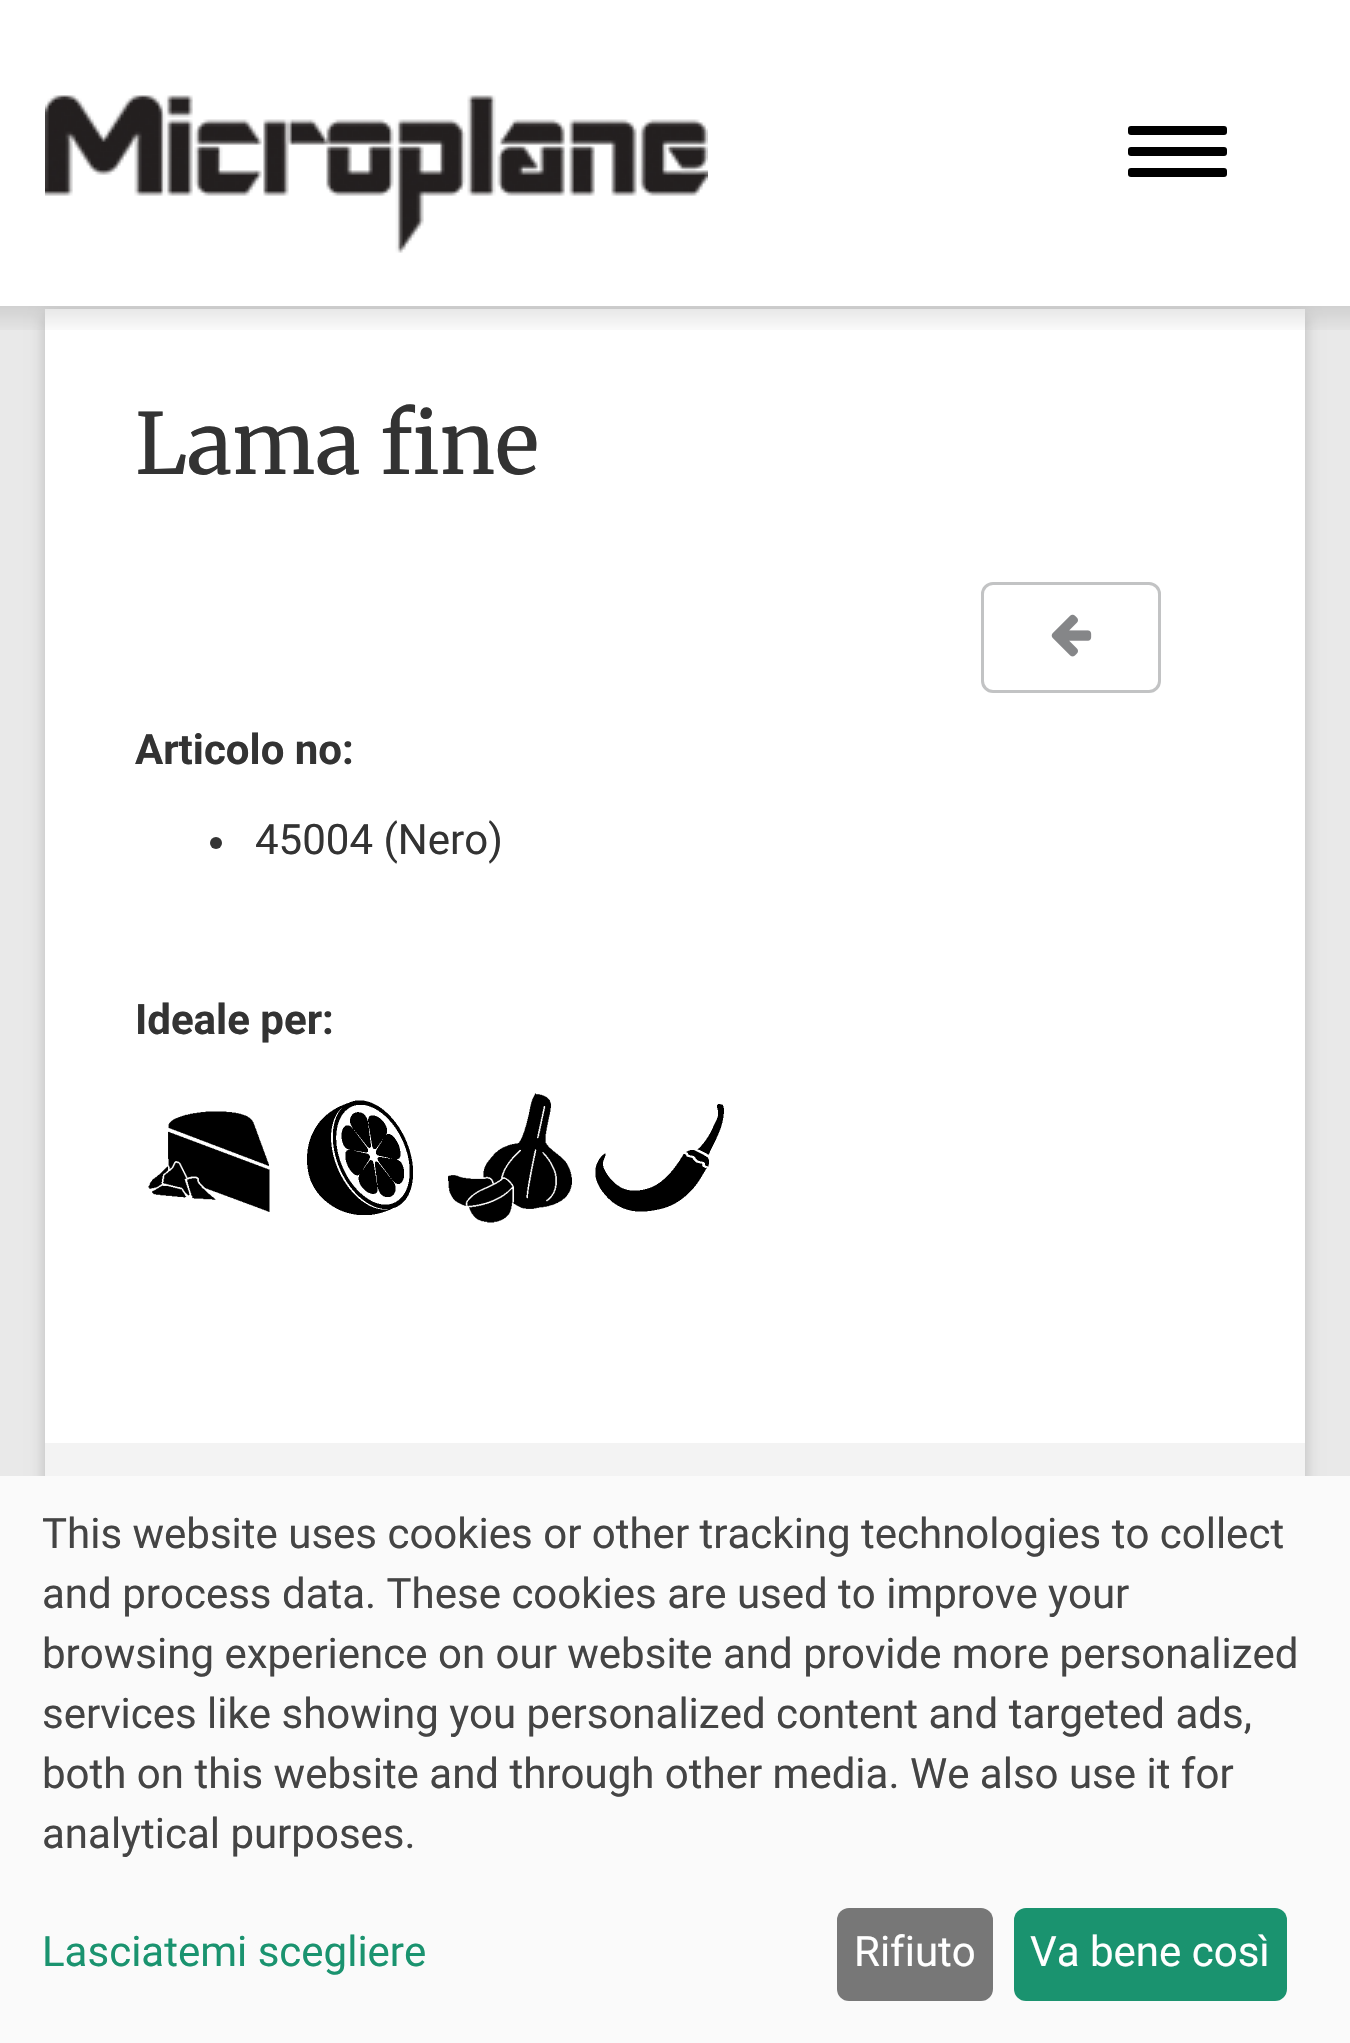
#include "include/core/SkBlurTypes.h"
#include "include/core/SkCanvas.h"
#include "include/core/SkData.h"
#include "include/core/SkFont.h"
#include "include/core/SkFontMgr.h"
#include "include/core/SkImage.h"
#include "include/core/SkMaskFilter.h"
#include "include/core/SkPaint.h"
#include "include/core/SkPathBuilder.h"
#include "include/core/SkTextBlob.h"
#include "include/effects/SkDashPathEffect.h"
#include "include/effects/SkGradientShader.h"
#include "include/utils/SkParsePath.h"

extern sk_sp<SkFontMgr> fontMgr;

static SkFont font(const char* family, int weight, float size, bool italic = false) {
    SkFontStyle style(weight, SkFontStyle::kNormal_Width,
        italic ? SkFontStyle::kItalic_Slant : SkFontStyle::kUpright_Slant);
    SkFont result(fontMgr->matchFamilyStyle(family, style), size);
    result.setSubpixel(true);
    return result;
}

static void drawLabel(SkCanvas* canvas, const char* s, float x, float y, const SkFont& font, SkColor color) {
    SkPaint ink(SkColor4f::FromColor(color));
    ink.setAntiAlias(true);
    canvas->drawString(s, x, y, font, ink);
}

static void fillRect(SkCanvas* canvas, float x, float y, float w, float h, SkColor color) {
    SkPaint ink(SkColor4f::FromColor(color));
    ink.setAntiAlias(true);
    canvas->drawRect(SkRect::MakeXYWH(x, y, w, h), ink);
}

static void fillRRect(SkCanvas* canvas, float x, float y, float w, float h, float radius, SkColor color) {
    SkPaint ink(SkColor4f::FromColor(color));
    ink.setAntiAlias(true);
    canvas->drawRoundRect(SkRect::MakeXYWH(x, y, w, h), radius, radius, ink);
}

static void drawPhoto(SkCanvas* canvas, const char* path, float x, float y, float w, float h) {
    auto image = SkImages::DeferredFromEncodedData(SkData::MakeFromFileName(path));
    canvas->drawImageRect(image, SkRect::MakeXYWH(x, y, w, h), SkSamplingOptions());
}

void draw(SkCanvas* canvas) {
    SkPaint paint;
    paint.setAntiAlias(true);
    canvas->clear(0xFFE9E9E9);
    paint.setColor(0x33000000);
    paint.setMaskFilter(SkMaskFilter::MakeBlur(kNormal_SkBlurStyle, 7.5f));
    canvas->drawRect(SkRect::MakeXYWH(45, 315, 1260, 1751), paint);
    paint.setMaskFilter(nullptr);
    fillRect(canvas, 0, 0, 1350, 306, 0xFFFFFFFF);
    drawPhoto(canvas, "assets/img1.png", 45, 95, 663, 158);
    fillRRect(canvas, 1128, 126, 99, 9, 3, 0xFF000000);
    fillRRect(canvas, 1128, 147, 99, 9, 3, 0xFF000000);
    fillRRect(canvas, 1128, 168, 99, 9, 3, 0xFF000000);
    fillRect(canvas, 45, 309, 1260, 1134, 0xFFFFFFFF);
    {
        const SkColor colors[] = {0x1A000000, 0x00000000};
        const float stops[] = {0, 1};
        const SkPoint ends[] = {{675, 306}, {675, 336}};
        paint.setShader(SkGradientShader::MakeLinear(ends, colors, stops, 2, SkTileMode::kClamp));
        paint.setAlpha(255);
    }
    canvas->drawRect(SkRect::MakeXYWH(0, 306, 1350, 24), paint);
    SkFont font1 = font("Merriweather", 300, 84);
    drawLabel(canvas, "Lama fine", 135, 474, font1, 0xFF333333);
    paint.setStroke(true);
    paint.setStrokeWidth(3);
    paint.setShader(nullptr);
    paint.setColor(0xFFC2C3C4);
    canvas->drawRoundRect(SkRect::MakeXYWH(982.5f, 583.5f, 177, 108), 10.5f, 10.5f, paint);
    drawPhoto(canvas, "assets/img2.png", 1051, 614, 41, 43);
    SkFont font2 = font("Roboto", 700, 42);
    drawLabel(canvas, "Articolo no:", 135, 764, font2, 0xFF333333);
    paint.setStroke(false);
    paint.setColor(0xFF333333);
    canvas->drawCircle(216, 843, 6, paint);
    SkFont font3 = font("Roboto", 400, 42);
    drawLabel(canvas, "45004 (Nero)", 255, 854, font3, 0xFF333333);
    drawLabel(canvas, "Ideale per:", 135, 1034, font2, 0xFF333333);
    drawPhoto(canvas, "assets/img3.png", 148, 1111, 122, 101);
    drawPhoto(canvas, "assets/img4.png", 307, 1100, 106, 115);
    drawPhoto(canvas, "assets/img5.png", 448, 1093, 124, 130);
    drawPhoto(canvas, "assets/img6.png", 595, 1104, 129, 108);
    fillRect(canvas, 45, 1443, 1260, 33, 0xFFF3F3F3);
    fillRect(canvas, 0, 1476, 1350, 567, 0xFFFAFAFA);
    drawLabel(canvas, "This website uses cookies or other tracking technologies to collect", 42, 1548, font3, 0xFF444444);
    drawLabel(canvas, "and process data. These cookies are used to improve your", 42, 1608, font3, 0xFF444444);
    drawLabel(canvas, "browsing experience on our website and provide more personalized", 42, 1668, font3, 0xFF444444);
    drawLabel(canvas, "services like showing you personalized content and targeted ads,", 42, 1728, font3, 0xFF444444);
    drawLabel(canvas, "both on this website and through other media. We also use it for", 42, 1788, font3, 0xFF444444);
    drawLabel(canvas, "analytical purposes.", 42, 1848, font3, 0xFF444444);
    drawLabel(canvas, "Lasciatemi scegliere", 42, 1966, font3, 0xFF1A936F);
    fillRRect(canvas, 837, 1908, 156, 93, 12, 0xFF777777);
    drawLabel(canvas, "Rifiuto", 854, 1966, font3, 0xFFFFFFFF);
    fillRRect(canvas, 1014, 1908, 273, 93, 12, 0xFF1A936F);
    drawLabel(canvas, "Va bene così", 1030, 1966, font3, 0xFFFFFFFF);
}
